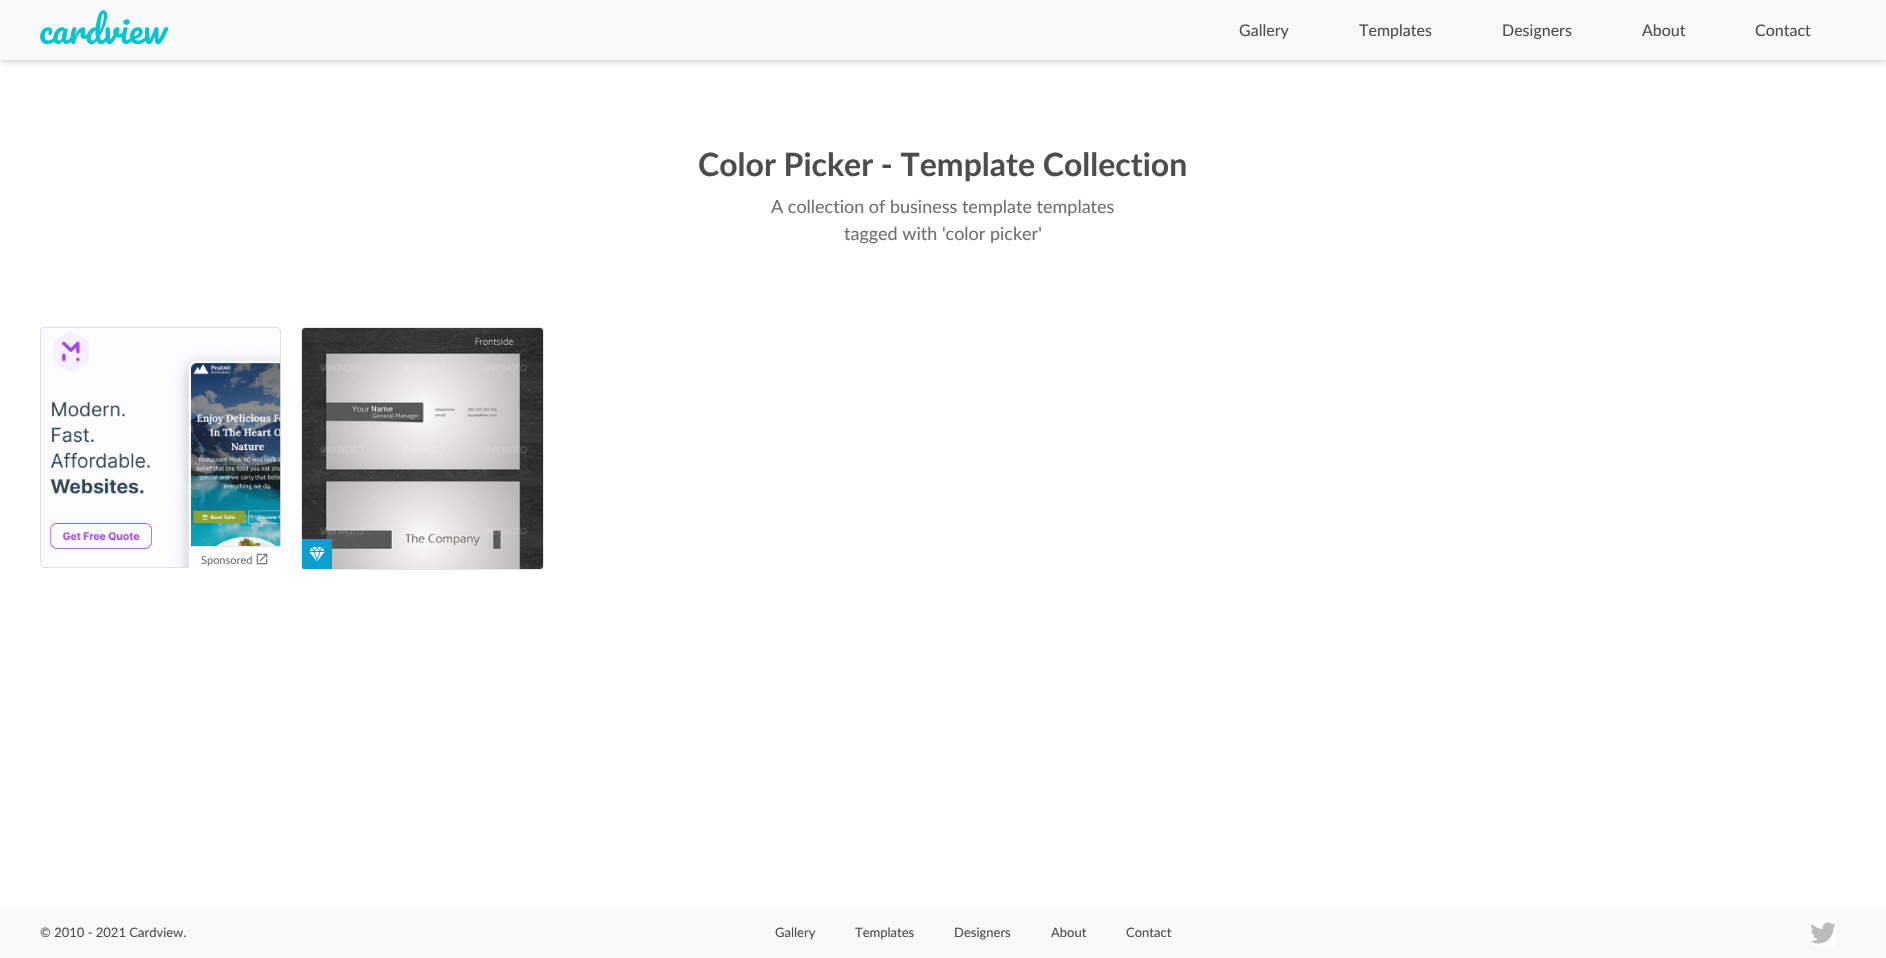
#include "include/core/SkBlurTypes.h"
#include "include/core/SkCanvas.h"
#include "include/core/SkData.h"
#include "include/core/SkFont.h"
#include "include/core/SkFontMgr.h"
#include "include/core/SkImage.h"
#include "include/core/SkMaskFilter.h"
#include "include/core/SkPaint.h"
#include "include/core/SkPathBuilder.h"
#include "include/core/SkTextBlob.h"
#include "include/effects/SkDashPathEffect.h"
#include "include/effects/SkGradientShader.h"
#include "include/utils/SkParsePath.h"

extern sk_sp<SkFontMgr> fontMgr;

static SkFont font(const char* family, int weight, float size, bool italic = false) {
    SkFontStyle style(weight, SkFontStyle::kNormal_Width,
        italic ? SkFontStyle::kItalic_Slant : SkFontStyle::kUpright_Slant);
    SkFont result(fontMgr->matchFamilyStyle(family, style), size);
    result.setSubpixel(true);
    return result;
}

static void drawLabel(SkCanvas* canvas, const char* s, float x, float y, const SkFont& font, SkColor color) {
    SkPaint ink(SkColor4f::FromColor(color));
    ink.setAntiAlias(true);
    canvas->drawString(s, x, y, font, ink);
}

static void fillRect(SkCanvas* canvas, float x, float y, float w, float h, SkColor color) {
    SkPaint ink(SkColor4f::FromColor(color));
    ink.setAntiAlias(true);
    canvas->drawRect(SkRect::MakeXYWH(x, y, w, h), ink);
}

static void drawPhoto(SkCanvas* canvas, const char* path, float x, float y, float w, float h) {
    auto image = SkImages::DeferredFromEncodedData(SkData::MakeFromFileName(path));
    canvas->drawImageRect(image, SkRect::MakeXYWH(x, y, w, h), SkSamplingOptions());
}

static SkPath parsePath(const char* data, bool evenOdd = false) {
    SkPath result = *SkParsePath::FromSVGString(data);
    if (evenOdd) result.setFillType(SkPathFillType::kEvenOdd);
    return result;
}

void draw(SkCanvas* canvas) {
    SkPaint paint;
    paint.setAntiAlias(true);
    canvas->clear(0xFFFFFFFF);
    paint.setColor(0x0F000000);
    paint.setMaskFilter(SkMaskFilter::MakeBlur(kNormal_SkBlurStyle, 2));
    canvas->drawRect(SkRect::MakeXYWH(1, 3, 1884, 58), paint);
    paint.setMaskFilter(nullptr);
    paint.setColor(0x1A000000);
    paint.setMaskFilter(SkMaskFilter::MakeBlur(kNormal_SkBlurStyle, 3));
    canvas->drawRect(SkRect::MakeXYWH(1, 5, 1884, 58), paint);
    paint.setMaskFilter(nullptr);
    fillRect(canvas, 0, 0, 1886, 60, 0xFFF9F9F9);
    drawPhoto(canvas, "assets/img1.png", 40, 10, 129, 35);
    SkFont font1 = font("Lato", 400, 16);
    drawLabel(canvas, "Gallery", 1239, 36, font1, 0xFF4D4D4D);
    drawLabel(canvas, "Templates", 1359, 36, font1, 0xFF4D4D4D);
    drawLabel(canvas, "Designers", 1502, 36, font1, 0xFF4D4D4D);
    drawLabel(canvas, "About", 1642, 36, font1, 0xFF4D4D4D);
    drawLabel(canvas, "Contact", 1755, 36, font1, 0xFF4D4D4D);
    SkFont font2 = font("Lato", 700, 32);
    drawLabel(canvas, "Color Picker - Template Collection", 698, 176, font2, 0xFF4D4D4D);
    SkFont font3 = font("Lato", 400, 18);
    drawLabel(canvas, "A collection of business template templates", 771, 213, font3, 0xFF6F6F6F);
    drawLabel(canvas, "tagged with 'color picker'", 844, 240, font3, 0xFF6F6F6F);
    drawPhoto(canvas, "assets/img2.png", 40, 327, 241, 241);
    paint.setColor(0xFFFFFFFF);
    canvas->drawPath(parsePath("M193 546H281V568H188V551C188 548 190 546 193 546Z"), paint);
    paint.setColor(0xFFE6E6E6);
    canvas->drawPath(parsePath("M193 546H281V568H188V551C188 548 190 546 193 546ZM193 547H281V568H189V551C189 549 191 547 193 547Z", true), paint);
    SkFont font4 = font("Lato", 400, 11);
    drawLabel(canvas, "Sponsored", 201, 564, font4, 0xFF6F6F6F);
    drawPhoto(canvas, "assets/img3.png", 256, 553, 12, 12);
    paint.setStroke(true);
    paint.setStrokeWidth(1);
    canvas->drawRoundRect(SkRect::MakeXYWH(301.5f, 327.5f, 242, 242), 3.5f, 3.5f, paint);
    drawPhoto(canvas, "assets/img4.png", 302, 328, 241, 241);
    paint.setStroke(false);
    paint.setColor(0xFF09A0CF);
    canvas->drawPath(parsePath("M302 539H332V569H305C303.5 569 302 567.5 302 566Z"), paint);
    drawPhoto(canvas, "assets/img5.png", 309, 547, 16, 14);
    fillRect(canvas, 0, 908, 1886, 50, 0xFFF9F9F9);
    SkFont font5 = font("Lato", 400, 13);
    drawLabel(canvas, "© 2010 - 2021 Cardview.", 40, 937, font5, 0xFF4D4D4D);
    drawLabel(canvas, "Gallery", 775, 937, font5, 0xFF4D4D4D);
    drawLabel(canvas, "Templates", 855, 937, font5, 0xFF4D4D4D);
    drawLabel(canvas, "Designers", 954, 937, font5, 0xFF4D4D4D);
    drawLabel(canvas, "About", 1051, 937, font5, 0xFF4D4D4D);
    drawLabel(canvas, "Contact", 1126, 937, font5, 0xFF4D4D4D);
    drawPhoto(canvas, "assets/img6.png", 1810, 920, 26, 26);
}
